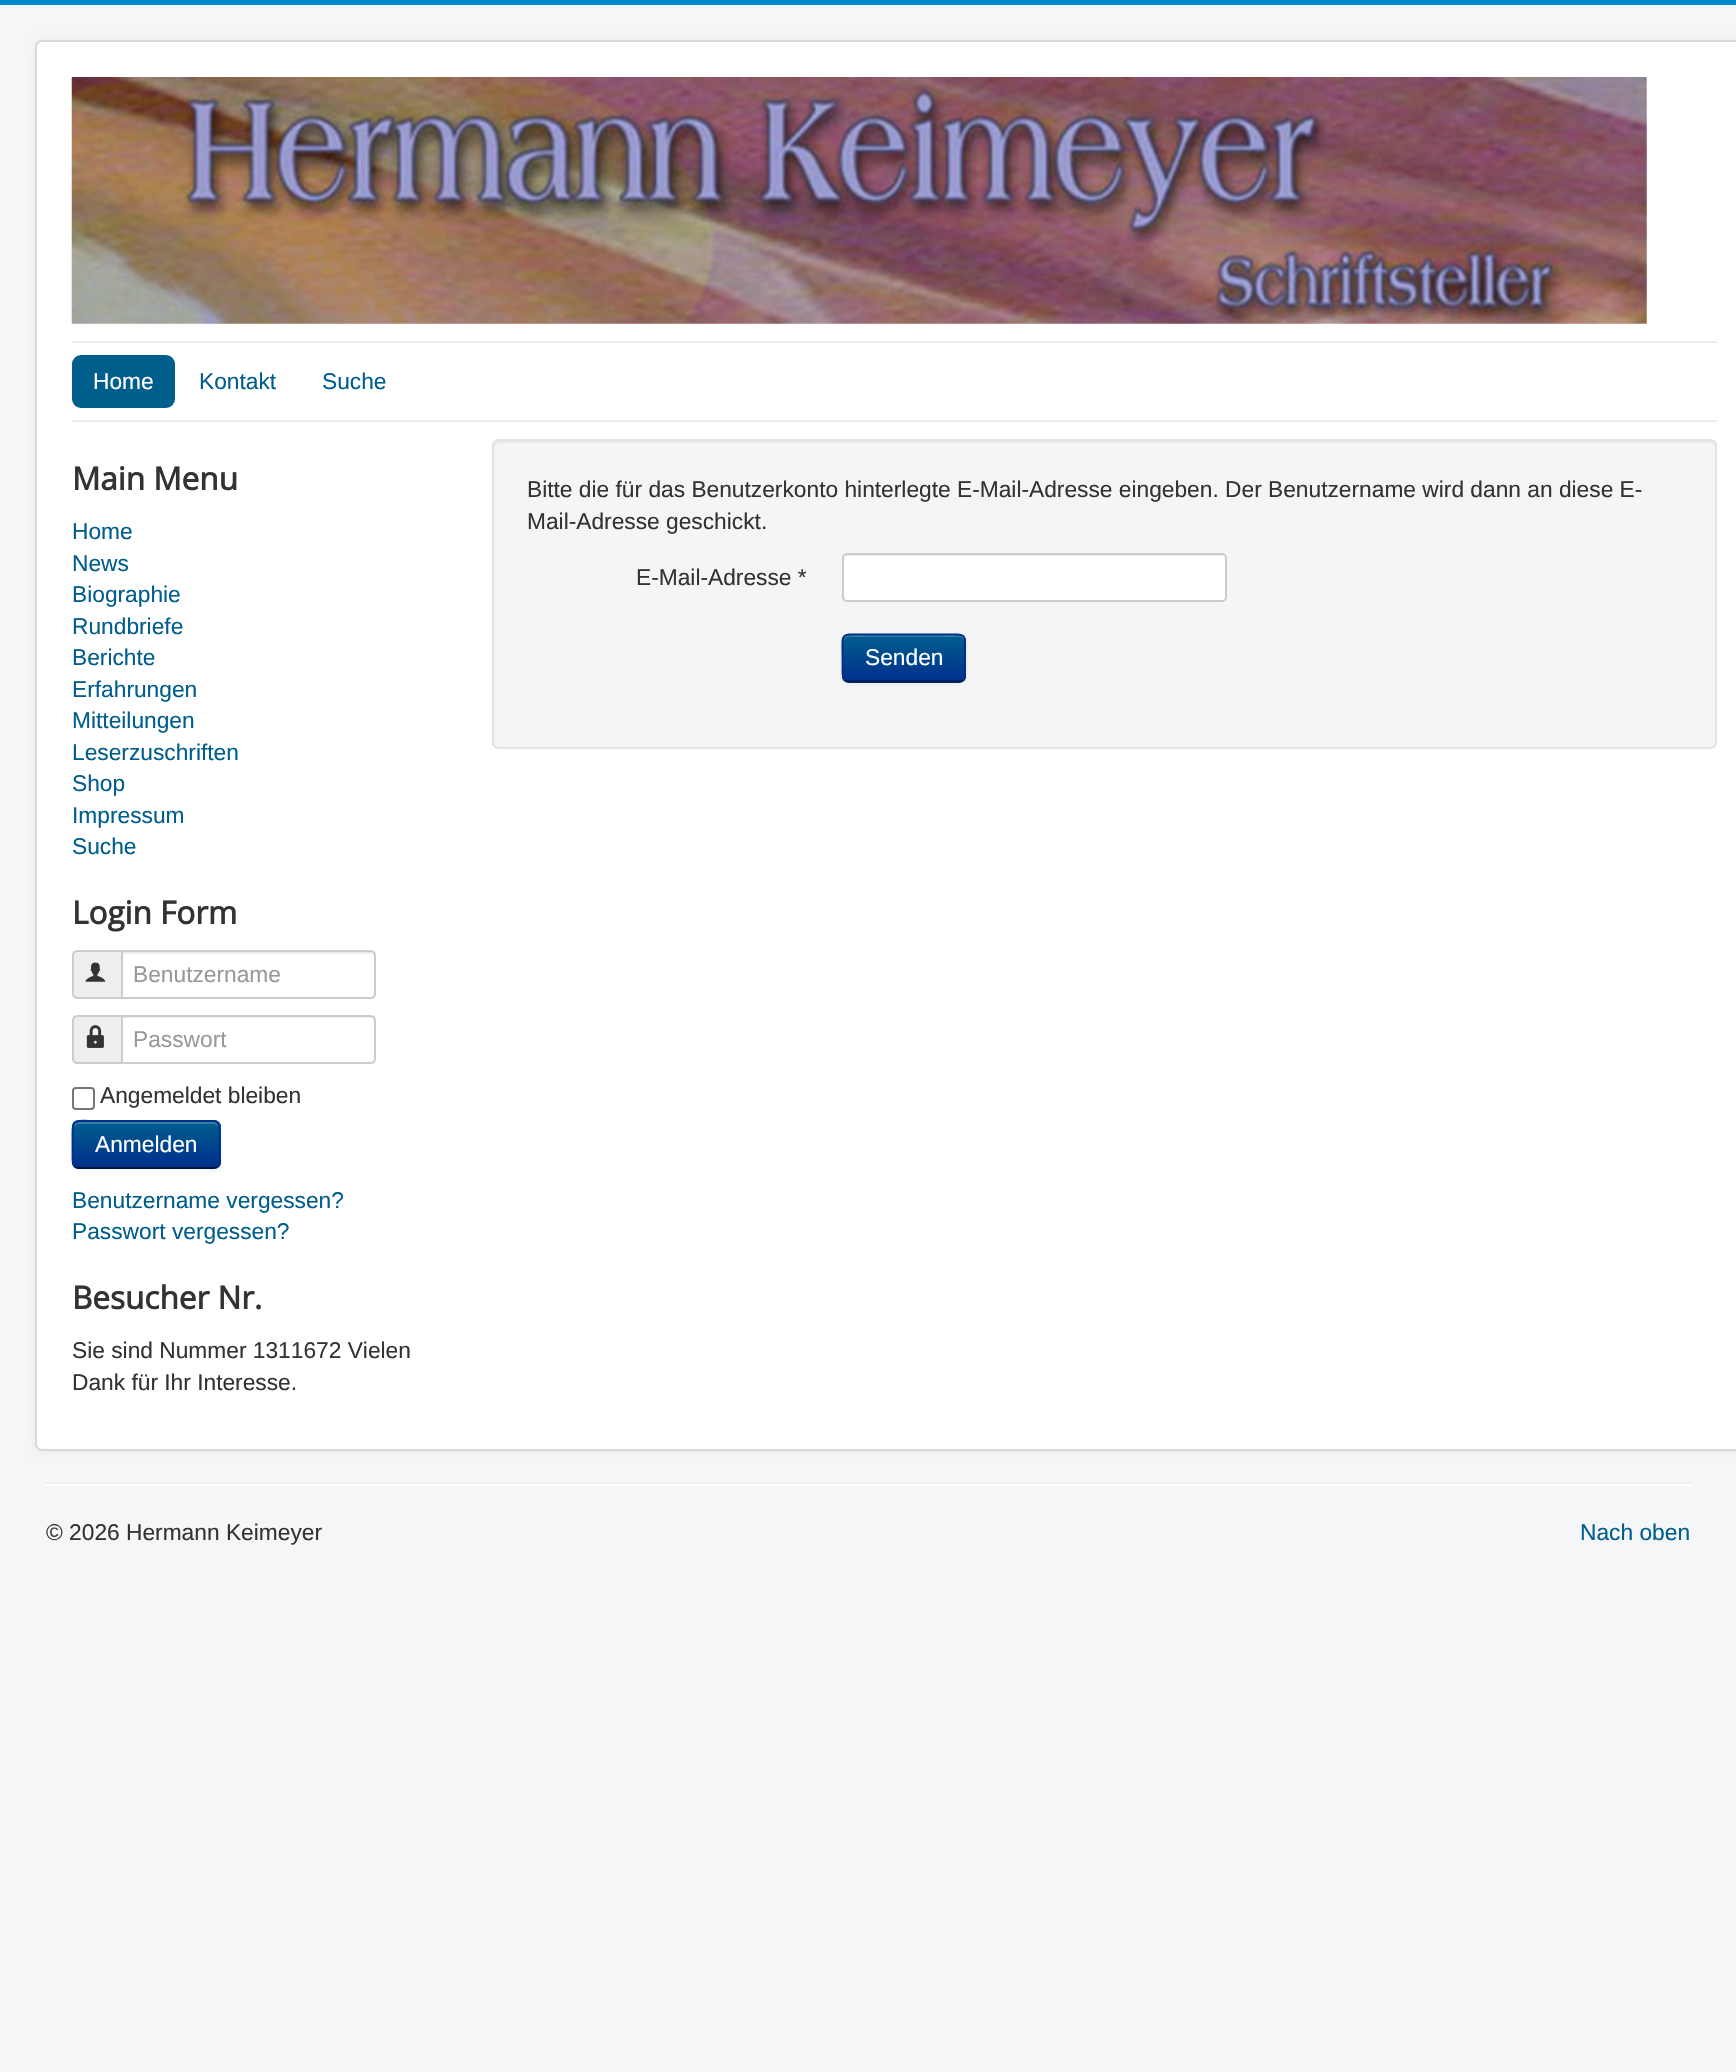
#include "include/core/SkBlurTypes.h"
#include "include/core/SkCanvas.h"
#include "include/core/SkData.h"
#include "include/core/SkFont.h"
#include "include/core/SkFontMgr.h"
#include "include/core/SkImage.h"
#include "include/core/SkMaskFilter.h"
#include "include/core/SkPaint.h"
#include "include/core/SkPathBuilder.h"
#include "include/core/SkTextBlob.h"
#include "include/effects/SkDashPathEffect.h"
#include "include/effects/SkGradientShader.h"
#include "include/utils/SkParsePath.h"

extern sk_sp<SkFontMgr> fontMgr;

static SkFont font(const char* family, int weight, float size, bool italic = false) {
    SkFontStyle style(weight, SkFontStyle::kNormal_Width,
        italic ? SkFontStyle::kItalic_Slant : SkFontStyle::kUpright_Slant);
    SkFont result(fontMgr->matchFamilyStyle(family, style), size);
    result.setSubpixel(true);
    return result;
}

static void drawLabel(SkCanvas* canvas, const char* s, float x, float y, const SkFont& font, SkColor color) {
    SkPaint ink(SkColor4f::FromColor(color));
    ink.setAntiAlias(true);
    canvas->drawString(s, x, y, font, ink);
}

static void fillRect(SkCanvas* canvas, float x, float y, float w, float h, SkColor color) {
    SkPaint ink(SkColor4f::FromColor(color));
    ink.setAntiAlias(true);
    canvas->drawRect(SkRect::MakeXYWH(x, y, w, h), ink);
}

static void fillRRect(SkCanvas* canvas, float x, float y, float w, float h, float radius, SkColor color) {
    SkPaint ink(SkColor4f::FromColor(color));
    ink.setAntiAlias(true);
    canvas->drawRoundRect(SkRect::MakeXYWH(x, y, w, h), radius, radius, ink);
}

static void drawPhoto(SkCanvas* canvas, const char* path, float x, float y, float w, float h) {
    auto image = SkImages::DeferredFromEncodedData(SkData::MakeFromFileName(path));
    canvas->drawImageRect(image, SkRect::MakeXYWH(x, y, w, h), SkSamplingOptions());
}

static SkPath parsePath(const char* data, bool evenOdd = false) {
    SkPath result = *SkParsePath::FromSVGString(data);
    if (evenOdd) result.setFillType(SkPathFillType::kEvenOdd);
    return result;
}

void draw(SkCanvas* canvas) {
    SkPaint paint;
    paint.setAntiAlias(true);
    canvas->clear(0xFFF4F6F7);
    fillRect(canvas, 0, 0, 1736, 5, 0xFF0088CC);
    paint.setColor(0x0D000000);
    paint.setMaskFilter(SkMaskFilter::MakeBlur(kNormal_SkBlurStyle, 5));
    canvas->drawRoundRect(SkRect::MakeXYWH(35, 40, 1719, 1411), 7, 7, paint);
    paint.setMaskFilter(nullptr);
    fillRRect(canvas, 35, 40, 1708, 1411, 7, 0xFFFFFFFF);
    paint.setStroke(true);
    paint.setStrokeWidth(2);
    paint.setColor(0x26000000);
    canvas->drawRoundRect(SkRect::MakeXYWH(36, 41, 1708, 1409), 6, 6, paint);
    drawPhoto(canvas, "assets/img1.png", 71, 77, 1576, 247);
    fillRect(canvas, 72, 341, 1645, 2, 0xFFECECEC);
    fillRect(canvas, 72, 420, 1645, 2, 0xFFECECEC);
    fillRRect(canvas, 72, 355, 103, 53, 9, 0xFF005E8D);
    SkFont font1 = font("Liberation Sans", 400, 22.75f);
    drawLabel(canvas, "Home", 93, 389, font1, 0xFFFFFFFF);
    drawLabel(canvas, "Kontakt", 199, 389, font1, 0xFF005E8D);
    drawLabel(canvas, "Suche", 322, 389, font1, 0xFF005E8D);
    SkFont font2 = font("Open Sans", 700, 31.5f);
    drawLabel(canvas, "Main Menu", 72, 490, font2, 0xFF333333);
    drawLabel(canvas, "Home", 72, 539, font1, 0xFF005E8D);
    drawLabel(canvas, "News", 72, 571, font1, 0xFF005E8D);
    drawLabel(canvas, "Biographie", 72, 602, font1, 0xFF005E8D);
    drawLabel(canvas, "Rundbriefe", 72, 634, font1, 0xFF005E8D);
    drawLabel(canvas, "Berichte", 72, 665, font1, 0xFF005E8D);
    drawLabel(canvas, "Erfahrungen", 72, 697, font1, 0xFF005E8D);
    drawLabel(canvas, "Mitteilungen", 72, 728, font1, 0xFF005E8D);
    drawLabel(canvas, "Leserzuschriften", 72, 760, font1, 0xFF005E8D);
    drawLabel(canvas, "Shop", 72, 791, font1, 0xFF005E8D);
    drawLabel(canvas, "Impressum", 72, 823, font1, 0xFF005E8D);
    drawLabel(canvas, "Suche", 72, 854, font1, 0xFF005E8D);
    drawLabel(canvas, "Login Form", 72, 924, font2, 0xFF333333);
    paint.setStroke(false);
    paint.setColor(0xFFEEEEEE);
    canvas->drawPath(parsePath("M77 951H122V998H77C75 998 73 996 73 994V955C73 953 75 951 77 951Z"), paint);
    paint.setStroke(true);
    paint.setColor(0xFFCCCCCC);
    canvas->drawPath(parsePath("M77 951H122V998H77C75 998 73 996 73 994V955C73 953 75 951 77 951Z"), paint);
    drawPhoto(canvas, "assets/img2.png", 85, 962, 21, 20);
    paint.setStroke(false);
    paint.setColor(0xFFFFFFFF);
    canvas->drawPath(parsePath("M121 950H371C374 950 376 952 376 955V994C376 997 374 999 371 999H121Z"), paint);
    paint.setColor(0xFFECECEC);
    canvas->drawPath(parsePath("M123 952V954H371C373 954 374 955 374 957V997C375 996 375 995 375 994V956C375 954 373 952 371 952Z"), paint);
    paint.setStroke(true);
    paint.setColor(0xFFCCCCCC);
    canvas->drawPath(parsePath("M122 951H371C373 951 375 953 375 955V994C375 996 373 998 371 998H122Z"), paint);
    drawLabel(canvas, "Benutzername", 133, 982, font1, 0xFF999999);
    paint.setStroke(false);
    paint.setColor(0xFFEEEEEE);
    canvas->drawPath(parsePath("M77 1016H122V1063H77C75 1063 73 1061 73 1059V1020C73 1018 75 1016 77 1016Z"), paint);
    paint.setStroke(true);
    paint.setColor(0xFFCCCCCC);
    canvas->drawPath(parsePath("M77 1016H122V1063H77C75 1063 73 1061 73 1059V1020C73 1018 75 1016 77 1016Z"), paint);
    drawPhoto(canvas, "assets/img3.png", 86, 1025, 18, 23);
    paint.setStroke(false);
    paint.setColor(0xFFFFFFFF);
    canvas->drawPath(parsePath("M121 1015H371C374 1015 376 1017 376 1020V1059C376 1062 374 1064 371 1064H121Z"), paint);
    paint.setColor(0xFFECECEC);
    canvas->drawPath(parsePath("M123 1017V1018H371C373 1018 374 1020 374 1022V1061C375 1060 375 1059 375 1058V1021C375 1019 373 1017 371 1017Z"), paint);
    paint.setStroke(true);
    paint.setColor(0xFFCCCCCC);
    canvas->drawPath(parsePath("M122 1016H371C373 1016 375 1018 375 1020V1059C375 1061 373 1063 371 1063H122Z"), paint);
    drawLabel(canvas, "Passwort", 133, 1047, font1, 0xFF999999);
    paint.setColor(0xFF767676);
    canvas->drawRoundRect(SkRect::MakeXYWH(73, 1088, 21, 21), 3, 3, paint);
    drawLabel(canvas, "Angemeldet bleiben", 100, 1103, font1, 0xFF333333);
    paint.setStroke(false);
    paint.setColor(0x0D000000);
    paint.setMaskFilter(SkMaskFilter::MakeBlur(kNormal_SkBlurStyle, 2));
    canvas->drawRoundRect(SkRect::MakeXYWH(72, 1122, 149, 49), 7, 7, paint);
    paint.setMaskFilter(nullptr);
    fillRRect(canvas, 72, 1120, 149, 49, 7, 0xFF004B8D);
    canvas->save();
    canvas->clipPath(parsePath("M79 1120H214C218 1120 221 1123 221 1127V1162C221 1166 218 1169 214 1169H79C75 1169 72 1166 72 1162V1127C72 1123 75 1120 79 1120Z"), true);
    {
        const SkColor colors[] = {0xFF005E8D, 0xFF002F8D};
        const float stops[] = {0, 1};
        const SkPoint ends[] = {{146, 1122}, {146, 1167}};
        paint.setShader(SkGradientShader::MakeLinear(ends, colors, stops, 2, SkTileMode::kClamp));
        paint.setAlpha(255);
    }
    canvas->drawRect(SkRect::MakeXYWH(72, 1122, 149, 45), paint);
    canvas->restore();
    paint.setShader(nullptr);
    paint.setColor(0x33FFFFFF);
    canvas->drawPath(parsePath("M79 1124H214C216 1124 219 1126 219 1129V1127C219 1124 217 1122 214 1122H79C76 1122 74 1124 74 1127V1129C74 1126 76 1124 79 1124Z"), paint);
    paint.setStroke(true);
    paint.setStrokeWidth(1.8f);
    paint.setColor(0xFF001641);
    canvas->drawPath(parsePath("M218 1166.5C216.5 1167.5 215 1168 213.5 1168H79C77 1168 75.5 1167.5 74.5 1166.5"), paint);
    paint.setColor(0xFF002F8D);
    canvas->drawPath(parsePath("M74.5 1166.5C72 1163.5 72.5 1159.5 72.5 1156V1144.5C72.5 1116 70 1121 101 1121H213.5C220 1121 219.5 1128 219.5 1133V1150.5C219.5 1154 221.5 1163 218 1166.5"), paint);
    drawLabel(canvas, "Anmelden", 95, 1152, font1, 0xFFFFFFFF);
    drawLabel(canvas, "Benutzername vergessen?", 72, 1208, font1, 0xFF005E8D);
    drawLabel(canvas, "Passwort vergessen?", 72, 1239, font1, 0xFF005E8D);
    drawLabel(canvas, "Besucher Nr.", 72, 1309, font2, 0xFF333333);
    drawLabel(canvas, "Sie sind Nummer 1311672 Vielen", 72, 1358, font1, 0xFF333333);
    drawLabel(canvas, "Dank für Ihr Interesse.", 72, 1390, font1, 0xFF333333);
    fillRRect(canvas, 492, 439, 1225, 310, 7, 0xFFF5F5F5);
    paint.setStroke(false);
    paint.setColor(0xFFE9E9E9);
    canvas->drawPath(parsePath("M499 443H1710C1713 443 1715 445 1715 448V446C1715 443 1713 441 1710 441H499C496 441 494 443 494 446V448C494 445 496 443 499 443Z"), paint);
    paint.setStroke(true);
    paint.setStrokeWidth(2);
    paint.setColor(0xFFE3E3E3);
    canvas->drawRoundRect(SkRect::MakeXYWH(493, 440, 1223, 308), 6, 6, paint);
    drawLabel(canvas, "Bitte die für das Benutzerkonto hinterlegte E-Mail-Adresse eingeben. Der Benutzername wird dann an diese E-", 527, 497, font1, 0xFF333333);
    drawLabel(canvas, "Mail-Adresse geschickt.", 527, 529, font1, 0xFF333333);
    drawLabel(canvas, "E-Mail-Adresse *", 636, 585, font1, 0xFF333333);
    fillRRect(canvas, 842, 553, 385, 49, 5, 0xFFFFFFFF);
    paint.setStroke(false);
    paint.setColor(0xFFECECEC);
    canvas->drawPath(parsePath("M847 556H1222C1223 556 1225 558 1225 560C1225 557 1224 555 1221 555H848C845 555 844 557 844 560C844 558 845 556 847 556Z"), paint);
    paint.setStroke(true);
    paint.setColor(0xFFCCCCCC);
    canvas->drawRoundRect(SkRect::MakeXYWH(843, 554, 383, 47), 4, 4, paint);
    paint.setStroke(false);
    paint.setColor(0x0D000000);
    paint.setMaskFilter(SkMaskFilter::MakeBlur(kNormal_SkBlurStyle, 2));
    canvas->drawRoundRect(SkRect::MakeXYWH(842, 635, 124, 49), 7, 7, paint);
    paint.setMaskFilter(nullptr);
    fillRRect(canvas, 842, 634, 124, 49, 7, 0xFF004B8D);
    canvas->save();
    canvas->clipPath(parsePath("M849 634H959C963 634 966 637 966 641V676C966 680 963 683 959 683H849C845 683 842 680 842 676V641C842 637 845 634 849 634Z"), true);
    {
        const SkColor colors[] = {0xFF005E8D, 0xFF002F8D};
        const float stops[] = {0, 1};
        const SkPoint ends[] = {{904, 635}, {904, 681}};
        paint.setShader(SkGradientShader::MakeLinear(ends, colors, stops, 2, SkTileMode::kClamp));
        paint.setAlpha(255);
    }
    canvas->drawRect(SkRect::MakeXYWH(842, 635, 124, 46), paint);
    canvas->restore();
    paint.setShader(nullptr);
    paint.setColor(0x33FFFFFF);
    canvas->drawPath(parsePath("M849 637H959C962 637 964 639 964 642V640C964 637 962 635 959 635H849C846 635 844 637 844 640V642C844 639 846 637 849 637Z"), paint);
    paint.setStroke(true);
    paint.setStrokeWidth(1.8f);
    paint.setColor(0xFF001641);
    canvas->drawPath(parsePath("M963.5 680C962 681 960.5 681.5 959 681.5H849C847 681.5 845.5 681 844.5 680"), paint);
    paint.setColor(0xFF002F8D);
    canvas->drawPath(parsePath("M844.5 680C842 677 842.5 673 842.5 669.5V658C842.5 631 839 634.5 867 634.5H940.5C968.5 634.5 965 631 965 658V669.5C965 673 966 677 963.5 680"), paint);
    drawLabel(canvas, "Senden", 865, 665, font1, 0xFFFFFFFF);
    fillRect(canvas, 46, 1482, 1645, 2, 0xFFEEEEEE);
    fillRect(canvas, 46, 1484, 1645, 2, 0xFFFFFFFF);
    drawLabel(canvas, "© 2026 Hermann Keimeyer", 46, 1540, font1, 0xFF333333);
    drawLabel(canvas, "Nach oben", 1580, 1540, font1, 0xFF005E8D);
}
